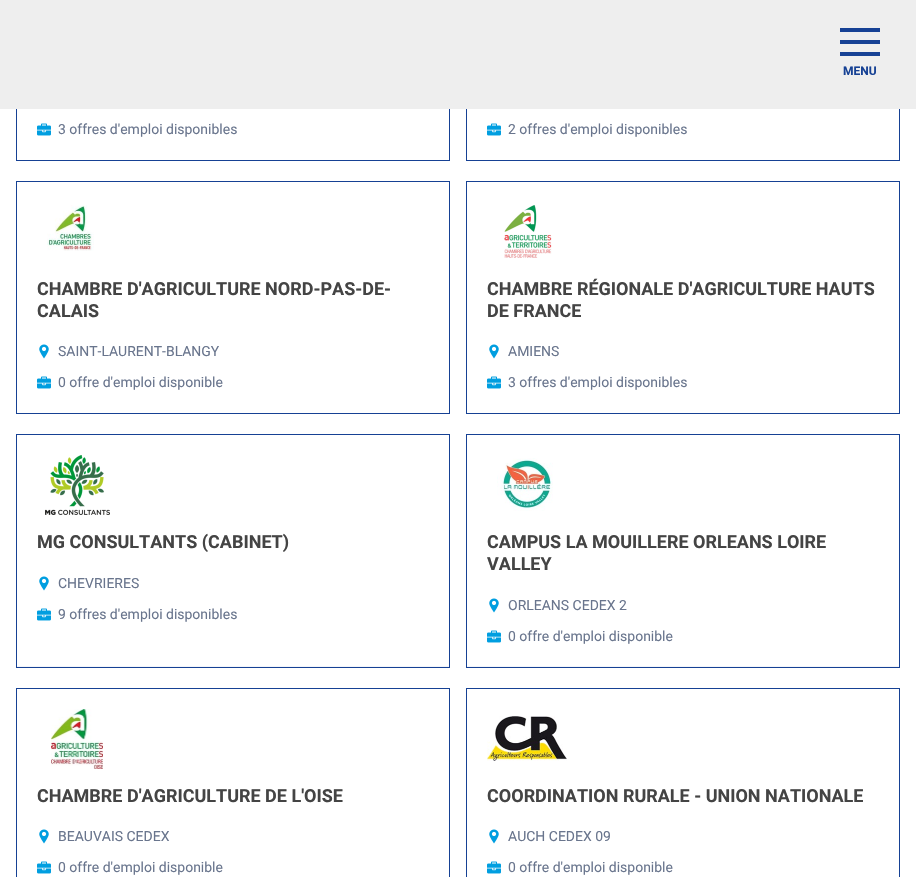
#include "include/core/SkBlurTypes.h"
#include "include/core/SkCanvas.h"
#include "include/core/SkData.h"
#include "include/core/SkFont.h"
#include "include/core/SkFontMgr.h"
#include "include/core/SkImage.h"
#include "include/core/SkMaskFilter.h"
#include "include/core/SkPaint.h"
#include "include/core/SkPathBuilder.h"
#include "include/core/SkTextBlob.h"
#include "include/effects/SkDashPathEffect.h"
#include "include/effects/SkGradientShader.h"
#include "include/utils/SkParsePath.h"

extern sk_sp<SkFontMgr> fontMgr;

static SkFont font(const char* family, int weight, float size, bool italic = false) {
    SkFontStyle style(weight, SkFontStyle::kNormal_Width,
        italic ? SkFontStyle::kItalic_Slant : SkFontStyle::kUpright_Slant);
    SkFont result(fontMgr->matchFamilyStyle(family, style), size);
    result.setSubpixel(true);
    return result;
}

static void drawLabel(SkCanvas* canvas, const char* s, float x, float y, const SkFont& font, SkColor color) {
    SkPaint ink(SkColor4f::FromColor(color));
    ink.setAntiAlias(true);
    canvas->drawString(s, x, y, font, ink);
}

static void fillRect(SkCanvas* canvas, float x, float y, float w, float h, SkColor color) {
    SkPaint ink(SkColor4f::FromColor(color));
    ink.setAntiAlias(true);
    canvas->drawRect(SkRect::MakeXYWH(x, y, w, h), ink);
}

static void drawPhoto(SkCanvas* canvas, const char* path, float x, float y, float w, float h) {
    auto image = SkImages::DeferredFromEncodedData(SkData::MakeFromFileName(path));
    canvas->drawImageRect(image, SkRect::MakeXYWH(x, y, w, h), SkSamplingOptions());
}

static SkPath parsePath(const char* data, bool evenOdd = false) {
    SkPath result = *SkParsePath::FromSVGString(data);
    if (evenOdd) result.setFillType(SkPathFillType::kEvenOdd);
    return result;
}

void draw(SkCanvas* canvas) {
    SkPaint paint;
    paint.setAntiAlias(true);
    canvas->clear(0xFFFFFFFF);
    paint.setStroke(true);
    paint.setStrokeWidth(1);
    paint.setColor(0xFF164194);
    canvas->drawRect(SkRect::MakeXYWH(16.5f, -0.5f, 433, 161), paint);
    canvas->drawRect(SkRect::MakeXYWH(466.5f, -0.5f, 433, 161), paint);
    fillRect(canvas, 0, 0, 916, 109, 0xFFEEEEEE);
    paint.setStroke(false);
    canvas->drawPath(parsePath("M840 28H880V32H840ZM840 40H880V44H840ZM840 52H880V56H840Z"), paint);
    SkFont font1 = font("Roboto", 700, 12);
    drawLabel(canvas, "MENU", 843, 75, font1, 0xFF164194);
    drawPhoto(canvas, "assets/img1.png", 37, 123, 14, 13);
    SkFont font2 = font("Roboto", 400, 14);
    drawLabel(canvas, "3 offres d'emploi disponibles", 58, 134, font2, 0xFF69758D);
    drawPhoto(canvas, "assets/img1.png", 487, 123, 14, 13);
    drawLabel(canvas, "2 offres d'emploi disponibles", 508, 134, font2, 0xFF69758D);
    paint.setStroke(true);
    canvas->drawRect(SkRect::MakeXYWH(16.5f, 181.5f, 433, 232), paint);
    drawPhoto(canvas, "assets/img2.png", 47, 205, 47, 46);
    SkFont font3 = font("Roboto", 700, 18);
    drawLabel(canvas, "CHAMBRE D'AGRICULTURE NORD-PAS-DE-", 37, 295, font3, 0xFF444444);
    drawLabel(canvas, "CALAIS", 37, 317, font3, 0xFF444444);
    drawPhoto(canvas, "assets/img3.png", 39, 344, 10, 15);
    drawLabel(canvas, "SAINT-LAURENT-BLANGY", 58, 356, font2, 0xFF69758D);
    drawPhoto(canvas, "assets/img1.png", 37, 376, 14, 13);
    drawLabel(canvas, "0 offre d'emploi disponible", 58, 387, font2, 0xFF69758D);
    canvas->drawRect(SkRect::MakeXYWH(466.5f, 181.5f, 433, 232), paint);
    drawPhoto(canvas, "assets/img4.png", 504, 205, 48, 53);
    drawLabel(canvas, "CHAMBRE RÉGIONALE D'AGRICULTURE HAUTS", 487, 295, font3, 0xFF444444);
    drawLabel(canvas, "DE FRANCE", 487, 317, font3, 0xFF444444);
    drawPhoto(canvas, "assets/img3.png", 489, 344, 10, 15);
    drawLabel(canvas, "AMIENS", 508, 356, font2, 0xFF69758D);
    drawPhoto(canvas, "assets/img1.png", 487, 376, 14, 13);
    drawLabel(canvas, "3 offres d'emploi disponibles", 508, 387, font2, 0xFF69758D);
    canvas->drawRect(SkRect::MakeXYWH(16.5f, 434.5f, 433, 233), paint);
    drawPhoto(canvas, "assets/img5.png", 45, 455, 65, 60);
    drawLabel(canvas, "MG CONSULTANTS (CABINET)", 37, 548, font3, 0xFF444444);
    drawPhoto(canvas, "assets/img3.png", 39, 576, 10, 15);
    drawLabel(canvas, "CHEVRIERES", 58, 588, font2, 0xFF69758D);
    drawPhoto(canvas, "assets/img1.png", 37, 608, 14, 13);
    drawLabel(canvas, "9 offres d'emploi disponibles", 58, 619, font2, 0xFF69758D);
    fillRect(canvas, 17, 666, 432, 1, 0xFFF3F5FA);
    canvas->drawRect(SkRect::MakeXYWH(466.5f, 434.5f, 433, 233), paint);
    drawPhoto(canvas, "assets/img6.png", 497, 458, 56, 53);
    drawLabel(canvas, "CAMPUS LA MOUILLERE ORLEANS LOIRE", 487, 548, font3, 0xFF444444);
    drawLabel(canvas, "VALLEY", 487, 570, font3, 0xFF444444);
    drawPhoto(canvas, "assets/img3.png", 489, 598, 10, 15);
    drawLabel(canvas, "ORLEANS CEDEX 2", 508, 610, font2, 0xFF69758D);
    drawPhoto(canvas, "assets/img1.png", 487, 630, 14, 13);
    drawLabel(canvas, "0 offre d'emploi disponible", 508, 641, font2, 0xFF69758D);
    fillRect(canvas, 467, 666, 432, 1, 0xFFF3F5FA);
    canvas->drawRect(SkRect::MakeXYWH(16.5f, 688.5f, 433, 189), paint);
    drawPhoto(canvas, "assets/img7.png", 51, 709, 52, 60);
    drawLabel(canvas, "CHAMBRE D'AGRICULTURE DE L'OISE", 37, 802, font3, 0xFF444444);
    drawPhoto(canvas, "assets/img3.png", 39, 829, 10, 15);
    drawLabel(canvas, "BEAUVAIS CEDEX", 58, 841, font2, 0xFF69758D);
    drawPhoto(canvas, "assets/img1.png", 37, 861, 14, 13);
    drawLabel(canvas, "0 offre d'emploi disponible", 58, 872, font2, 0xFF69758D);
    canvas->drawRect(SkRect::MakeXYWH(466.5f, 688.5f, 433, 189), paint);
    drawPhoto(canvas, "assets/img8.png", 487, 716, 80, 45);
    drawLabel(canvas, "COORDINATION RURALE - UNION NATIONALE", 487, 802, font3, 0xFF444444);
    drawPhoto(canvas, "assets/img3.png", 489, 829, 10, 15);
    drawLabel(canvas, "AUCH CEDEX 09", 508, 841, font2, 0xFF69758D);
    drawPhoto(canvas, "assets/img1.png", 487, 861, 14, 13);
    drawLabel(canvas, "0 offre d'emploi disponible", 508, 872, font2, 0xFF69758D);
}
